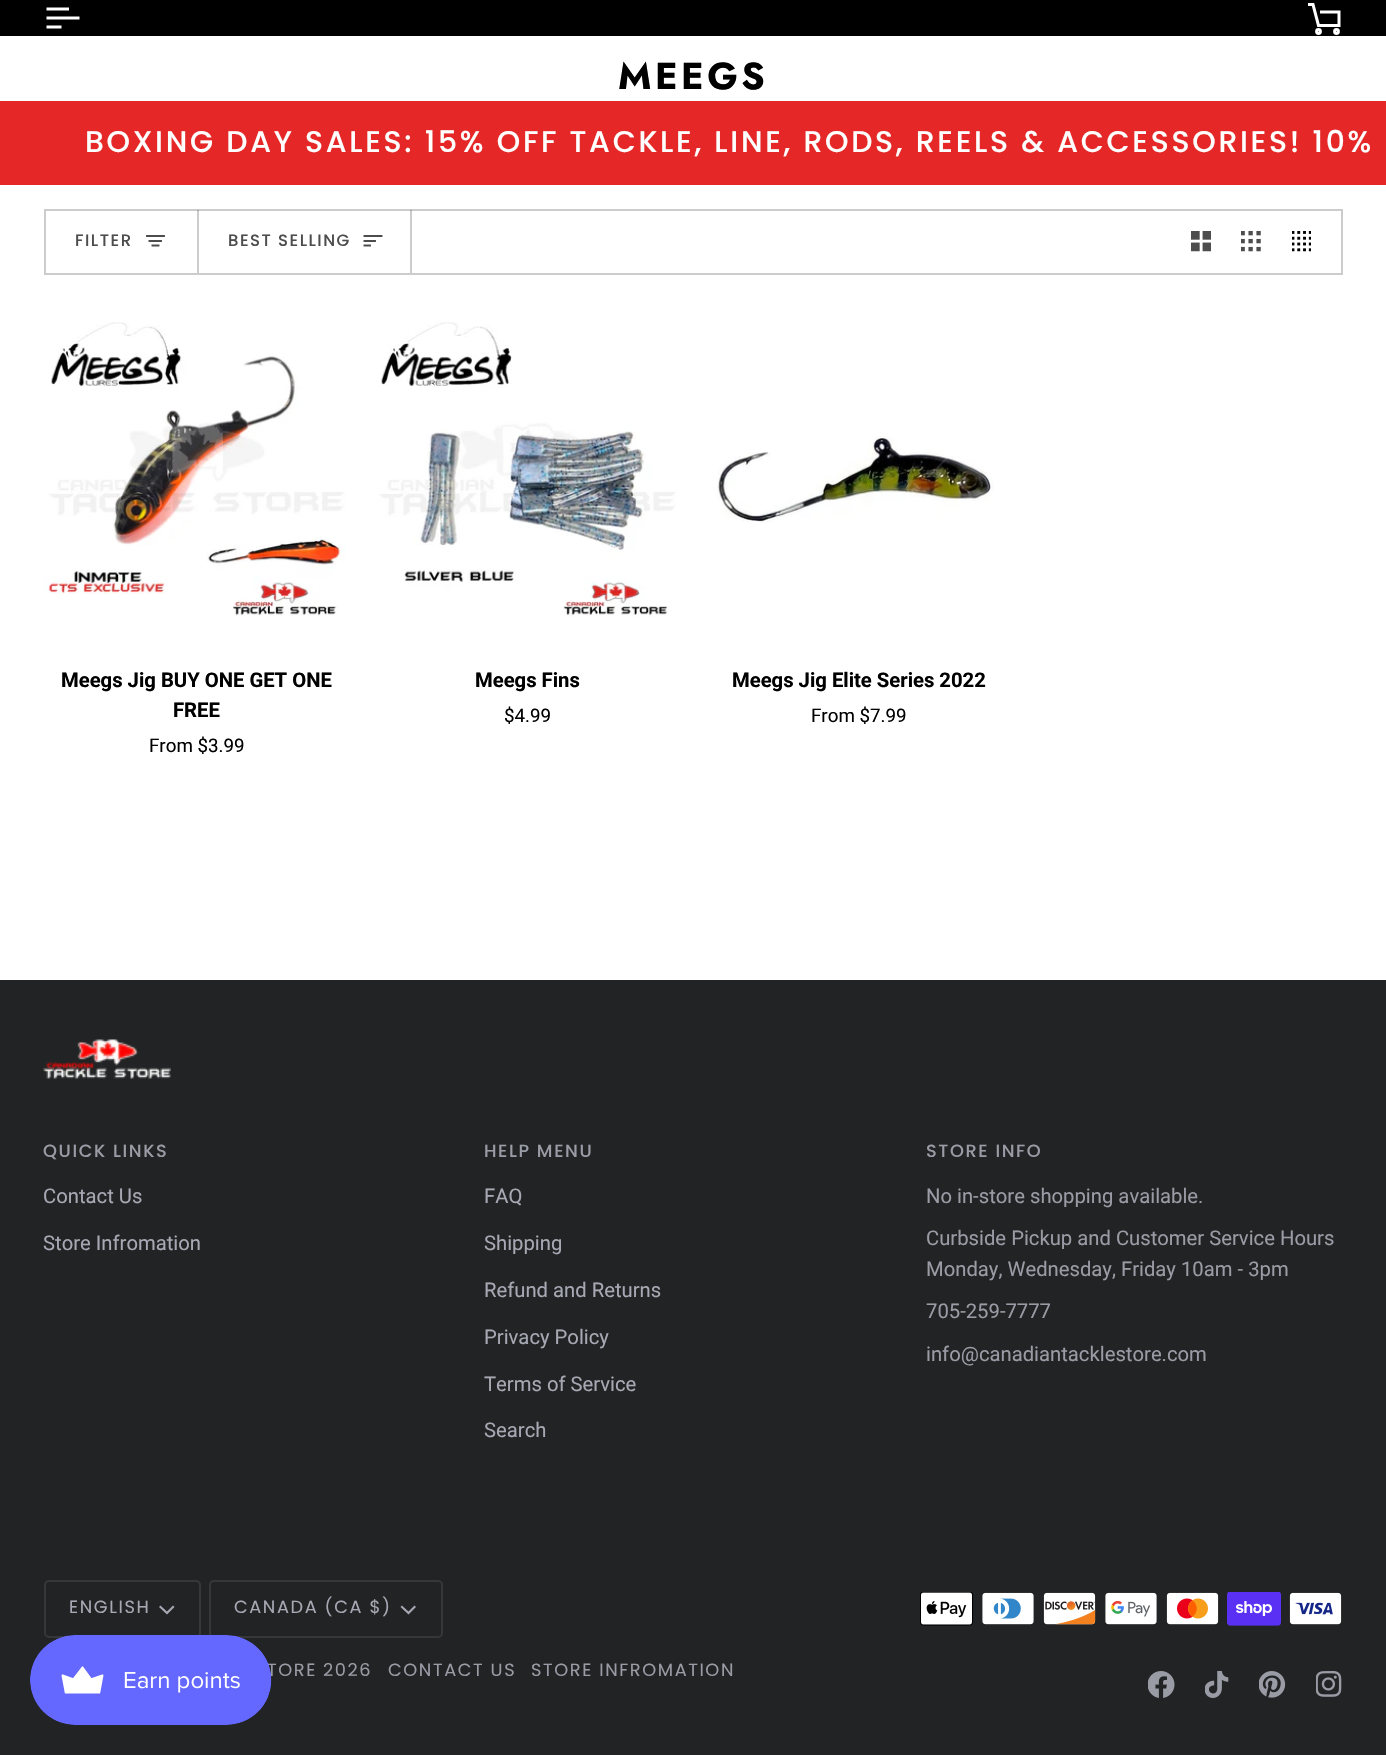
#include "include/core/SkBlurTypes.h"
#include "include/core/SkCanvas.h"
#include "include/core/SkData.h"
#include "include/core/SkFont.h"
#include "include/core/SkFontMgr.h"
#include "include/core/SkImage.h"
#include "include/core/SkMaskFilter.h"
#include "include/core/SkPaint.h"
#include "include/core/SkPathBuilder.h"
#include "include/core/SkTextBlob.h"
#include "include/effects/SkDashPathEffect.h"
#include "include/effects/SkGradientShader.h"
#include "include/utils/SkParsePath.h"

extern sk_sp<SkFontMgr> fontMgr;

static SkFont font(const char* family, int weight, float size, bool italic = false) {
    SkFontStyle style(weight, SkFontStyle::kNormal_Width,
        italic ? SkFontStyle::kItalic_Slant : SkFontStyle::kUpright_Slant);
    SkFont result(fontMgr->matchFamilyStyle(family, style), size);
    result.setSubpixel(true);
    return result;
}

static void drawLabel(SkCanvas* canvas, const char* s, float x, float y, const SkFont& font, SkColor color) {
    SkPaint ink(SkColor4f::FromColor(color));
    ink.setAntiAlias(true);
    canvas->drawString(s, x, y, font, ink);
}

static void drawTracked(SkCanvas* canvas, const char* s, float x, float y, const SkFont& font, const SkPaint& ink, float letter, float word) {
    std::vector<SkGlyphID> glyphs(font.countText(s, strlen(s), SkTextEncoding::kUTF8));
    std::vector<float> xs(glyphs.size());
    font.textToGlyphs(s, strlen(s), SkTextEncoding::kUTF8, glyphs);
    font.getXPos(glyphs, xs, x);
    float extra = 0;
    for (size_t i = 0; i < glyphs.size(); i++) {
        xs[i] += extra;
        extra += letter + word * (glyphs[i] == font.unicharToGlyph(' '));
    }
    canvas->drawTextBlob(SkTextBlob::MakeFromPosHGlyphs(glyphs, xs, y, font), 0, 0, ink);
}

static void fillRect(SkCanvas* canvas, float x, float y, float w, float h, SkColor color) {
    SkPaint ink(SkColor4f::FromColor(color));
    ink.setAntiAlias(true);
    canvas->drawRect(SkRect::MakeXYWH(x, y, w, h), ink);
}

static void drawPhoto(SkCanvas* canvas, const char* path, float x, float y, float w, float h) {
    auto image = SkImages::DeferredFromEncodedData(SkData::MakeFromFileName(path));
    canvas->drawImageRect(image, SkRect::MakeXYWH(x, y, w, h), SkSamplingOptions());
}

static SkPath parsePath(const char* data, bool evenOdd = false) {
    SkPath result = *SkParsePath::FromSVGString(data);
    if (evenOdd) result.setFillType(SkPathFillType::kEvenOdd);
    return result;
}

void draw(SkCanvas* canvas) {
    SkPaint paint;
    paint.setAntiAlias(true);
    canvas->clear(0xFFFFFFFF);
    fillRect(canvas, 0, 0, 1386, 36, 0xFF000000);
    paint.setStroke(true);
    paint.setStrokeWidth(3);
    paint.setStrokeCap(SkPaint::kSquare_Cap);
    paint.setColor(0xFFFFFFFF);
    canvas->drawPath(parsePath("M67.5 9H48M78 18H48M60 27H48"), paint);
    paint.setStrokeCap(SkPaint::kButt_Cap);
    canvas->drawPath(parsePath("M1308 4.5H1313L1318.5 25.5H1339V12H1320"), paint);
    canvas->drawCircle(1318.5f, 31.5f, 1.9f, paint);
    canvas->drawCircle(1336.5f, 31.5f, 1.9f, paint);
    SkFont font1 = font("Jost", 700, 37.5f);
    paint.setStroke(false);
    paint.setColor(0xFF000000);
    drawTracked(canvas, "MEEGS", 618, 89, font1, paint, 3.5f, 0);
    fillRect(canvas, 0, 101, 1386, 84, 0xFFE52727);
    SkFont font2 = font("Poppins", 500, 29.9f);
    paint.setColor(0xFFFFFFFF);
    drawTracked(canvas, "BOXING DAY SALES: 15% OFF TACKLE, LINE, RODS, REELS & ACCESSORIES! 10%", 85, 152, font2, paint, 2.7f, 0);
    paint.setStroke(true);
    paint.setStrokeWidth(2);
    paint.setColor(0xFFCCCCCC);
    canvas->drawRect(SkRect::MakeXYWH(45, 210, 1297, 64), paint);
    fillRect(canvas, 197, 210, 2, 63, 0x33000000);
    SkFont font3 = font("Poppins", 500, 16.5f);
    paint.setStroke(false);
    paint.setColor(0xFF4D4D4D);
    drawTracked(canvas, "FILTER", 75, 246, font3, paint, 1.5f, 0);
    paint.setStroke(true);
    paint.setStrokeWidth(1.9f);
    paint.setStrokeCap(SkPaint::kSquare_Cap);
    canvas->drawPath(parsePath("M164 236H147M161 241H149.5M158.5 245.5H152.5"), paint);
    fillRect(canvas, 410, 210, 2, 63, 0x33000000);
    paint.setStroke(false);
    drawTracked(canvas, "BEST SELLING", 228, 246, font3, paint, 1.5f, 0);
    paint.setStroke(true);
    canvas->drawPath(parsePath("M381.5 236H364.5M375 241H364.5M370 245.5H364.5"), paint);
    drawPhoto(canvas, "assets/img1.png", 1191, 231, 20, 21);
    drawPhoto(canvas, "assets/img2.png", 1241, 231, 20, 21);
    drawPhoto(canvas, "assets/img3.png", 1292, 231, 19, 21);
    drawPhoto(canvas, "assets/img4.png", 44, 322, 302, 294);
    SkFont font4 = font("Roboto", 700, 20.25f);
    drawLabel(canvas, "Meegs Jig BUY ONE GET ONE", 61, 687, font4, 0xFF000000);
    drawLabel(canvas, "FREE", 173, 717, font4, 0xFF000000);
    SkFont font5 = font("Roboto", 400, 18.75f);
    drawLabel(canvas, "From $3.99", 149, 752, font5, 0xFF000000);
    drawPhoto(canvas, "assets/img5.png", 379, 322, 297, 295);
    drawLabel(canvas, "Meegs Fins", 475, 687, font4, 0xFF000000);
    drawLabel(canvas, "$4.99", 504, 722, font5, 0xFF000000);
    drawPhoto(canvas, "assets/img6.png", 717, 436, 277, 87);
    drawLabel(canvas, "Meegs Jig Elite Series 2022", 732, 687, font4, 0xFF000000);
    drawLabel(canvas, "From $7.99", 811, 722, font5, 0xFF000000);
    fillRect(canvas, 0, 980, 1386, 775, 0xFF222324);
    drawPhoto(canvas, "assets/img7.png", 43, 1039, 128, 40);
    SkFont font6 = font("Poppins", 500, 17.75f);
    paint.setStroke(false);
    paint.setColor(0xFF999CA5);
    drawTracked(canvas, "QUICK LINKS", 43, 1157, font6, paint, 1.6f, 0);
    SkFont font7 = font("Roboto", 400, 20.25f);
    drawLabel(canvas, "Contact Us", 43, 1203, font7, 0xFFA6A9B3);
    drawLabel(canvas, "Store Infromation", 43, 1250, font7, 0xFFA6A9B3);
    drawTracked(canvas, "HELP MENU", 484, 1157, font6, paint, 1.6f, 0);
    drawLabel(canvas, "FAQ", 484, 1203, font7, 0xFFA6A9B3);
    drawLabel(canvas, "Shipping", 484, 1250, font7, 0xFFA6A9B3);
    drawLabel(canvas, "Refund and Returns", 484, 1297, font7, 0xFFA6A9B3);
    drawLabel(canvas, "Privacy Policy", 484, 1344, font7, 0xFFA6A9B3);
    drawLabel(canvas, "Terms of Service", 484, 1391, font7, 0xFFA6A9B3);
    drawLabel(canvas, "Search", 484, 1437, font7, 0xFFA6A9B3);
    drawTracked(canvas, "STORE INFO", 926, 1157, font6, paint, 1.6f, 0);
    drawLabel(canvas, "No in-store shopping available.", 926, 1203, font7, 0xFF999CA5);
    drawLabel(canvas, "Curbside Pickup and Customer Service Hours", 926, 1245, font7, 0xFF999CA5);
    drawLabel(canvas, "Monday, Wednesday, Friday 10am - 3pm", 926, 1276, font7, 0xFF999CA5);
    drawLabel(canvas, "705-259-7777", 926, 1318, font7, 0xFF999CA5);
    drawLabel(canvas, "info@canadiantacklestore.com", 926, 1361, font7, 0xFF999CA5);
    paint.setStroke(true);
    paint.setStrokeWidth(2);
    paint.setStrokeCap(SkPaint::kButt_Cap);
    paint.setColor(0xFF363739);
    canvas->drawRoundRect(SkRect::MakeXYWH(45, 1581, 155, 56), 4, 4, paint);
    SkFont font8 = font("Poppins", 400, 17.75f);
    paint.setStroke(false);
    paint.setColor(0xFFA6A9B3);
    drawTracked(canvas, "ENGLISH", 69, 1613, font8, paint, 1.6f, 0);
    paint.setStroke(true);
    paint.setStrokeWidth(2.1f);
    paint.setStrokeCap(SkPaint::kSquare_Cap);
    canvas->drawPath(parsePath("M160.5 1607L167 1613L173 1607"), paint);
    paint.setStrokeWidth(2);
    paint.setStrokeCap(SkPaint::kButt_Cap);
    paint.setColor(0xFF363739);
    canvas->drawRoundRect(SkRect::MakeXYWH(210, 1581, 232, 56), 4, 4, paint);
    paint.setStroke(false);
    paint.setColor(0xFFA6A9B3);
    drawTracked(canvas, "CANADA (CA $)", 234, 1613, font8, paint, 1.6f, 0);
    paint.setStroke(true);
    paint.setStrokeWidth(2.1f);
    paint.setStrokeCap(SkPaint::kSquare_Cap);
    canvas->drawPath(parsePath("M402 1607L408.5 1613L414.5 1607"), paint);
    drawPhoto(canvas, "assets/img8.png", 920, 1592, 54, 34);
    drawPhoto(canvas, "assets/img9.png", 982, 1592, 52, 33);
    drawPhoto(canvas, "assets/img10.png", 1043, 1592, 53, 33);
    drawPhoto(canvas, "assets/img11.png", 1105, 1592, 52, 33);
    drawPhoto(canvas, "assets/img12.png", 1166, 1592, 53, 33);
    drawPhoto(canvas, "assets/img13.png", 1227, 1592, 54, 34);
    drawPhoto(canvas, "assets/img14.png", 1289, 1592, 53, 33);
    paint.setStroke(false);
    paint.setColor(0xFF999CA5);
    drawTracked(canvas, "TORE", 267, 1676, font8, paint, 1.6f, 0);
    drawTracked(canvas, "2026", 323, 1676, font8, paint, 1.6f, 0);
    drawTracked(canvas, "CONTACT US", 388, 1676, font8, paint, 1.6f, 0);
    drawTracked(canvas, "STORE INFROMATION", 531, 1676, font8, paint, 1.6f, 0);
    drawPhoto(canvas, "assets/img15.png", 1148, 1671, 27, 27);
    drawPhoto(canvas, "assets/img16.png", 1205, 1671, 24, 27);
    drawPhoto(canvas, "assets/img17.png", 1259, 1671, 27, 27);
    drawPhoto(canvas, "assets/img18.png", 1316, 1671, 26, 26);
    drawPhoto(canvas, "assets/img19.png", 30, 1635, 242, 90);
}
